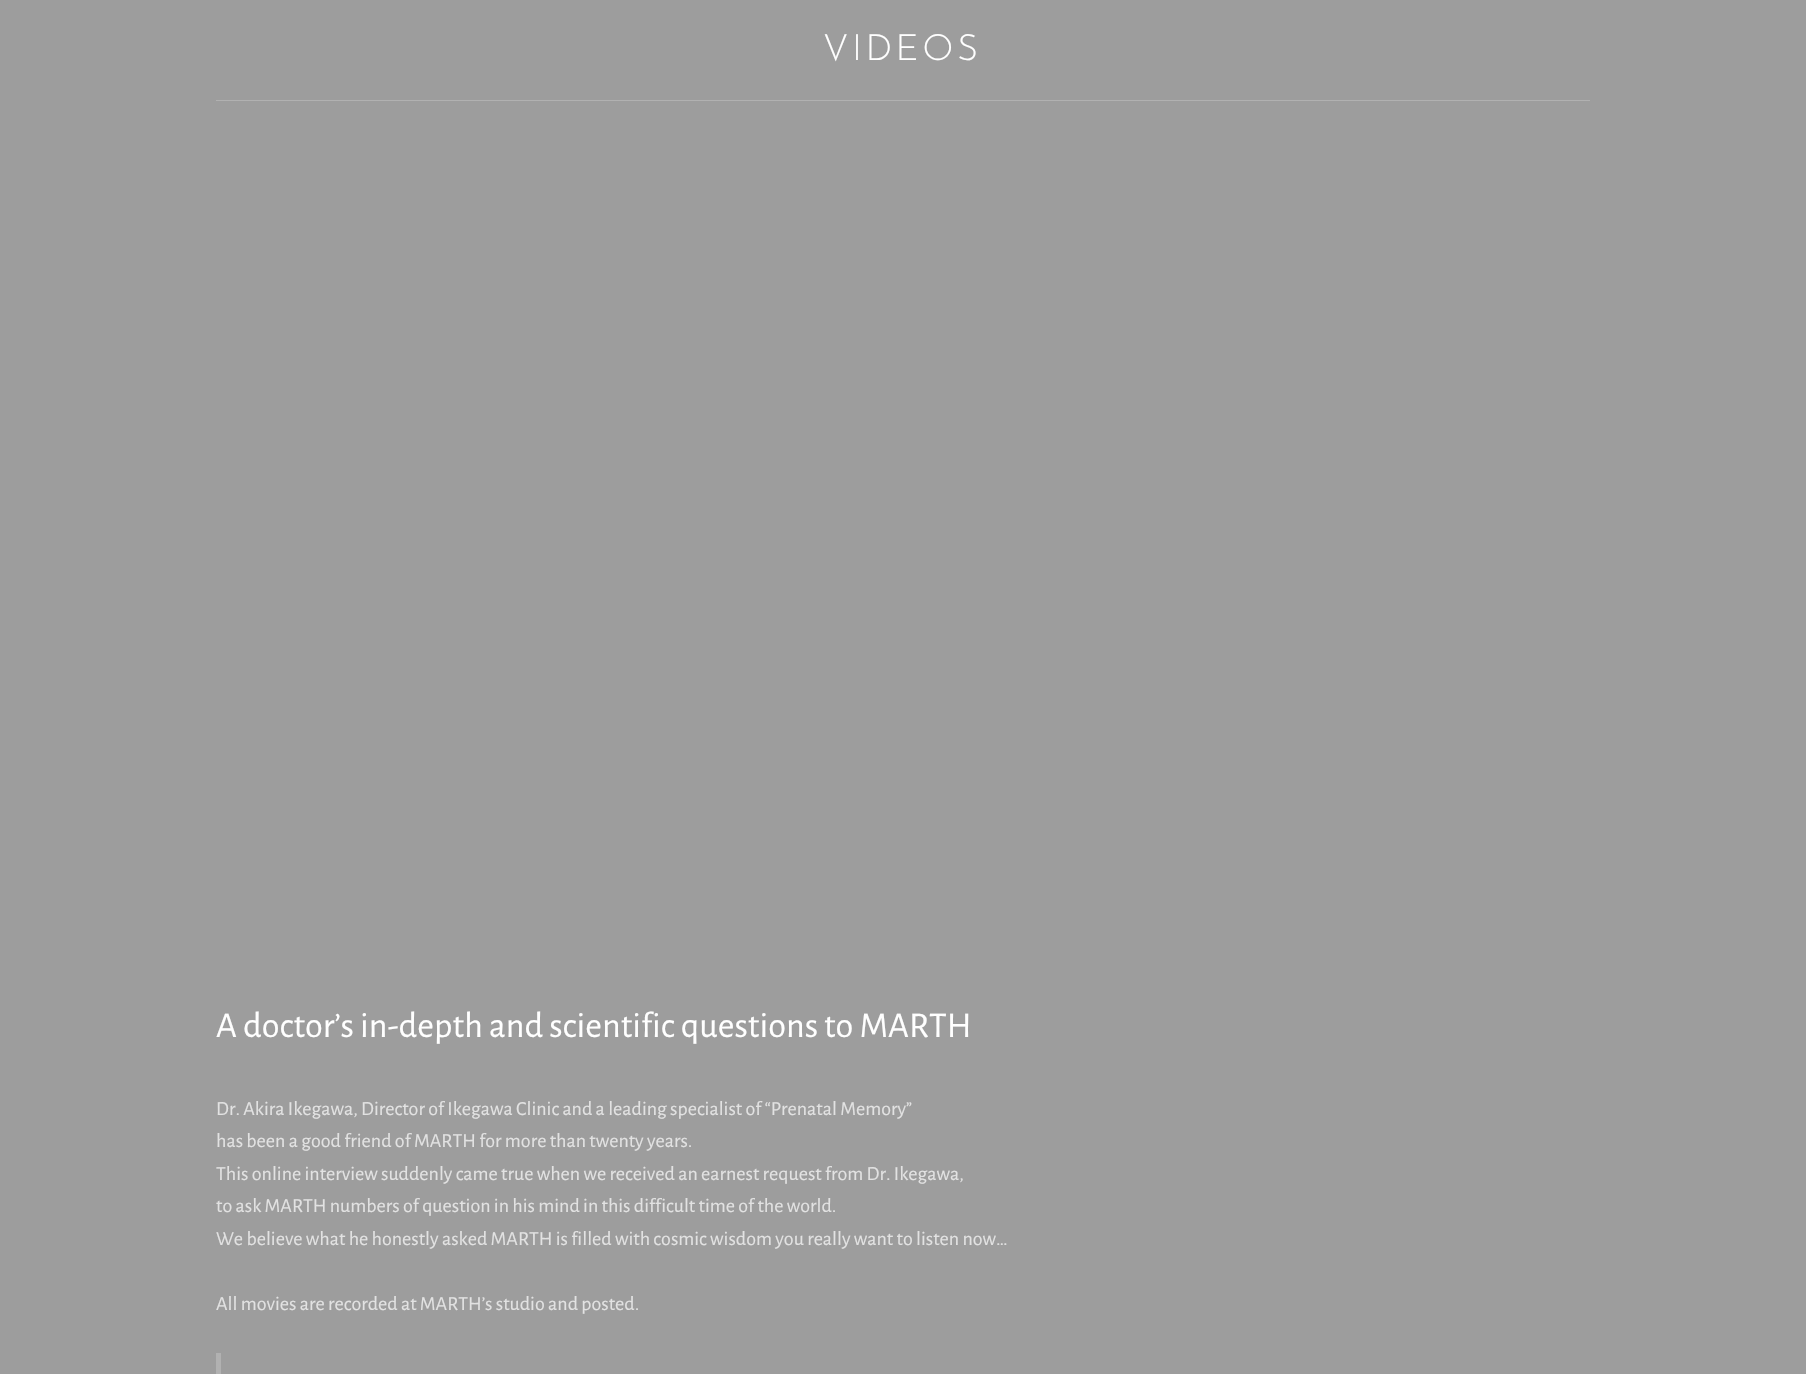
#include "include/core/SkBlurTypes.h"
#include "include/core/SkCanvas.h"
#include "include/core/SkData.h"
#include "include/core/SkFont.h"
#include "include/core/SkFontMgr.h"
#include "include/core/SkImage.h"
#include "include/core/SkMaskFilter.h"
#include "include/core/SkPaint.h"
#include "include/core/SkPathBuilder.h"
#include "include/core/SkTextBlob.h"
#include "include/effects/SkDashPathEffect.h"
#include "include/effects/SkGradientShader.h"
#include "include/utils/SkParsePath.h"

extern sk_sp<SkFontMgr> fontMgr;

static SkFont font(const char* family, int weight, float size, bool italic = false) {
    SkFontStyle style(weight, SkFontStyle::kNormal_Width,
        italic ? SkFontStyle::kItalic_Slant : SkFontStyle::kUpright_Slant);
    SkFont result(fontMgr->matchFamilyStyle(family, style), size);
    result.setSubpixel(true);
    return result;
}

static void drawLabel(SkCanvas* canvas, const char* s, float x, float y, const SkFont& font, SkColor color) {
    SkPaint ink(SkColor4f::FromColor(color));
    ink.setAntiAlias(true);
    canvas->drawString(s, x, y, font, ink);
}

static void drawTracked(SkCanvas* canvas, const char* s, float x, float y, const SkFont& font, const SkPaint& ink, float letter, float word) {
    std::vector<SkGlyphID> glyphs(font.countText(s, strlen(s), SkTextEncoding::kUTF8));
    std::vector<float> xs(glyphs.size());
    font.textToGlyphs(s, strlen(s), SkTextEncoding::kUTF8, glyphs);
    font.getXPos(glyphs, xs, x);
    float extra = 0;
    for (size_t i = 0; i < glyphs.size(); i++) {
        xs[i] += extra;
        extra += letter + word * (glyphs[i] == font.unicharToGlyph(' '));
    }
    canvas->drawTextBlob(SkTextBlob::MakeFromPosHGlyphs(glyphs, xs, y, font), 0, 0, ink);
}

static void fillRect(SkCanvas* canvas, float x, float y, float w, float h, SkColor color) {
    SkPaint ink(SkColor4f::FromColor(color));
    ink.setAntiAlias(true);
    canvas->drawRect(SkRect::MakeXYWH(x, y, w, h), ink);
}

void draw(SkCanvas* canvas) {
    SkPaint paint;
    paint.setAntiAlias(true);
    canvas->clear(0xFF9D9D9D);
    fillRect(canvas, 216, 100, 1374, 1, 0xFFB1B1B1);
    SkFont font1 = font("Josefin Sans", 100, 36.25f);
    paint.setColor(0xFFFFFFFF);
    drawTracked(canvas, "VIDEOS", 823, 60, font1, paint, 3.5f, 0);
    SkFont font2 = font("Alegreya Sans", 400, 36.25f);
    drawLabel(canvas, "A doctor’s in-depth and scientific questions to MARTH", 216, 1037, font2, 0xFFFFFFFF);
    SkFont font3 = font("Alegreya Sans", 400, 20);
    drawLabel(canvas, "Dr. Akira Ikegawa, Director of Ikegawa Clinic and a leading specialist of “Prenatal Memory”", 216, 1115, font3, 0xFFE2E2E2);
    drawLabel(canvas, "has been a good friend of MARTH for more than twenty years.", 216, 1147, font3, 0xFFE2E2E2);
    drawLabel(canvas, "This online interview suddenly came true when we received an earnest request from Dr. Ikegawa,", 216, 1180, font3, 0xFFE2E2E2);
    drawLabel(canvas, "to ask MARTH numbers of question in his mind in this difficult time of the world.", 216, 1212, font3, 0xFFE2E2E2);
    drawLabel(canvas, "We believe what he honestly asked MARTH is filled with cosmic wisdom you really want to listen now…", 216, 1245, font3, 0xFFE2E2E2);
    drawLabel(canvas, "All movies are recorded at MARTH’s studio and posted.", 216, 1310, font3, 0xFFE2E2E2);
    fillRect(canvas, 216, 1353, 5, 21, 0xFFB1B1B1);
}
